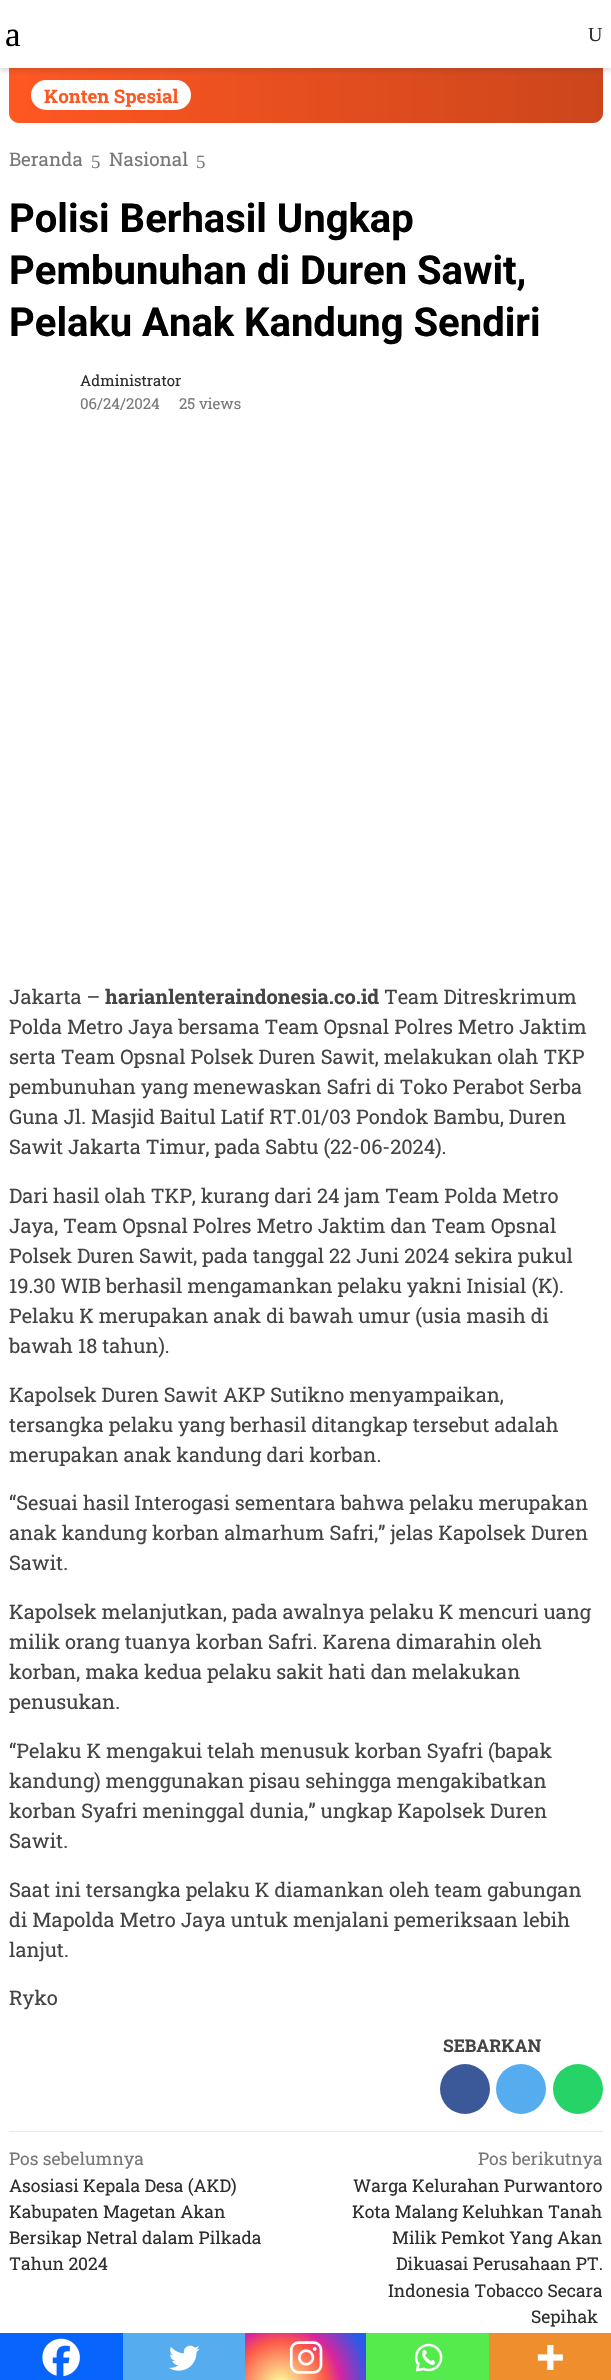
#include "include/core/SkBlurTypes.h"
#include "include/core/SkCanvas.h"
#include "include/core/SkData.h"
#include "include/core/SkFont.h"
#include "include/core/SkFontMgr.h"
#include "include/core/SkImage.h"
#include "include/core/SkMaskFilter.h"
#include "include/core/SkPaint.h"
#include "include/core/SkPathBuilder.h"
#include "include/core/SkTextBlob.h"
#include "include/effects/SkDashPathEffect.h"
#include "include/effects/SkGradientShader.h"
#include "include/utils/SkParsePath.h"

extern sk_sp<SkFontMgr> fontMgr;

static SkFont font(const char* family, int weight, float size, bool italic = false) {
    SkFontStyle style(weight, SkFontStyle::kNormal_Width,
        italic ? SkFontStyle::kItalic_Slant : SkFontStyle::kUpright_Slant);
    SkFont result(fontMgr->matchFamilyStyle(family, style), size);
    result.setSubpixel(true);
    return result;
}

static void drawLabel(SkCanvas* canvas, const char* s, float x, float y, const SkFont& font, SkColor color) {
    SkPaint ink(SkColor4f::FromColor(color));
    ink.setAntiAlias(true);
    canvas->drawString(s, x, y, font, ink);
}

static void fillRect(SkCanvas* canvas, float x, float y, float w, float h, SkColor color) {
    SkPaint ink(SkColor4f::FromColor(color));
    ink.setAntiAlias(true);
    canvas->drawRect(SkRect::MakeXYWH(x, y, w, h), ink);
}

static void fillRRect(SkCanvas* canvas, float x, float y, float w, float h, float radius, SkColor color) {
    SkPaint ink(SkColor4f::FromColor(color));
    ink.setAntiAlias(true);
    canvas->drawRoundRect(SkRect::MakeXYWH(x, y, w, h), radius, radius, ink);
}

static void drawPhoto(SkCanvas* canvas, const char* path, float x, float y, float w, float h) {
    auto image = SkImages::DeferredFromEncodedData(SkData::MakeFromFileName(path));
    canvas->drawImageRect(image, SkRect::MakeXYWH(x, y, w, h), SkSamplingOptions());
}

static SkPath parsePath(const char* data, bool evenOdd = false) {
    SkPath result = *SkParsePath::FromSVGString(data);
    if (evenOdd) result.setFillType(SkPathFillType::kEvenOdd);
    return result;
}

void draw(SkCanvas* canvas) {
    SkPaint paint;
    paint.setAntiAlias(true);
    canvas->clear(0xFFFFFFFF);
    paint.setColor(0xFFFF5722);
    canvas->drawPath(parsePath("M9 68H603V113C603 118.5 598.5 123 593 123H19C13.5 123 9 118.5 9 113Z"), paint);
    {
        const SkColor colors[] = {0x00000000, 0x33000000};
        const float stops[] = {0, 1};
        const SkPoint ends[] = {{9, 95}, {603, 95}};
        paint.setShader(SkGradientShader::MakeLinear(ends, colors, stops, 2, SkTileMode::kClamp));
        paint.setAlpha(255);
    }
    canvas->drawPath(parsePath("M9 68H603V113C603 118.5 598.5 123 593 123H19C13.5 123 9 118.5 9 113Z"), paint);
    paint.setShader(nullptr);
    paint.setColor(0x2E343434);
    paint.setMaskFilter(SkMaskFilter::MakeBlur(kNormal_SkBlurStyle, 2.5f));
    canvas->drawRect(SkRect::MakeXYWH(0, 4, 611, 67), paint);
    paint.setMaskFilter(nullptr);
    fillRect(canvas, 0, 0, 611, 68, 0xFFFFFFFF);
    SkFont font1 = font("Liberation Serif", 400, 35);
    drawLabel(canvas, "a", 5, 46, font1, 0xFF000000);
    SkFont font2 = font("Liberation Serif", 400, 20);
    drawLabel(canvas, "U", 588, 41, font2, 0xFF2E2E2E);
    fillRRect(canvas, 31, 80, 160, 30, 15, 0xFFFFFFFF);
    SkFont font3 = font("Roboto Slab", 700, 18.75f);
    drawLabel(canvas, "Konten Spesial", 44, 103, font3, 0xFFFF5722);
    SkFont font4 = font("Roboto Slab", 400, 18.75f);
    drawLabel(canvas, "Beranda", 9, 166, font4, 0xFF787878);
    SkFont font5 = font("Liberation Serif", 400, 18.75f);
    drawLabel(canvas, "5", 91, 168, font5, 0xFF787878);
    drawLabel(canvas, "Nasional", 109, 166, font4, 0xFF787878);
    drawLabel(canvas, "5", 196, 168, font5, 0xFF787878);
    SkFont font6 = font("Roboto", 700, 40);
    drawLabel(canvas, "Polisi Berhasil Ungkap", 9, 232, font6, 0xFF000000);
    drawLabel(canvas, "Pembunuhan di Duren Sawit,", 9, 284, font6, 0xFF000000);
    drawLabel(canvas, "Pelaku Anak Kandung Sendiri", 9, 336, font6, 0xFF000000);
    SkFont font7 = font("Roboto Slab", 400, 15);
    drawLabel(canvas, "Administrator", 80, 386, font7, 0xFF2E2E2E);
    drawLabel(canvas, "06/24/2024", 80, 409, font7, 0xFF787878);
    drawLabel(canvas, "25 views", 179, 409, font7, 0xFF787878);
    SkFont font8 = font("Roboto Slab", 400, 20);
    drawLabel(canvas, "Jakarta –", 9, 1004, font8, 0xFF444444);
    SkFont font9 = font("Roboto Slab", 700, 20);
    drawLabel(canvas, "harianlenteraindonesia.co.id", 105, 1004, font9, 0xFF444444);
    drawLabel(canvas, "Team Ditreskrimum", 384, 1004, font8, 0xFF444444);
    drawLabel(canvas, "Polda Metro Jaya bersama Team Opsnal Polres Metro Jaktim", 9, 1034, font8, 0xFF444444);
    drawLabel(canvas, "serta Team Opsnal Polsek Duren Sawit, melakukan olah TKP", 9, 1064, font8, 0xFF444444);
    drawLabel(canvas, "pembunuhan yang menewaskan Safri di Toko Perabot Serba", 9, 1094, font8, 0xFF444444);
    drawLabel(canvas, "Guna Jl. Masjid Baitul Latif RT.01/03 Pondok Bambu, Duren", 9, 1124, font8, 0xFF444444);
    drawLabel(canvas, "Sawit Jakarta Timur, pada Sabtu (22-06-2024).", 9, 1154, font8, 0xFF444444);
    drawLabel(canvas, "Dari hasil olah TKP, kurang dari 24 jam Team Polda Metro", 9, 1203, font8, 0xFF444444);
    drawLabel(canvas, "Jaya, Team Opsnal Polres Metro Jaktim dan Team Opsnal", 9, 1233, font8, 0xFF444444);
    drawLabel(canvas, "Polsek Duren Sawit, pada tanggal 22 Juni 2024 sekira pukul", 9, 1263, font8, 0xFF444444);
    drawLabel(canvas, "19.30 WIB berhasil mengamankan pelaku yakni Inisial (K).", 9, 1293, font8, 0xFF444444);
    drawLabel(canvas, "Pelaku K merupakan anak di bawah umur (usia masih di", 9, 1323, font8, 0xFF444444);
    drawLabel(canvas, "bawah 18 tahun).", 9, 1353, font8, 0xFF444444);
    drawLabel(canvas, "Kapolsek Duren Sawit AKP Sutikno menyampaikan,", 9, 1402, font8, 0xFF444444);
    drawLabel(canvas, "tersangka pelaku yang berhasil ditangkap tersebut adalah", 9, 1432, font8, 0xFF444444);
    drawLabel(canvas, "merupakan anak kandung dari korban.", 9, 1462, font8, 0xFF444444);
    drawLabel(canvas, "“Sesuai hasil Interogasi sementara bahwa pelaku merupakan", 9, 1510, font8, 0xFF444444);
    drawLabel(canvas, "anak kandung korban almarhum Safri,” jelas Kapolsek Duren", 9, 1540, font8, 0xFF444444);
    drawLabel(canvas, "Sawit.", 9, 1570, font8, 0xFF444444);
    drawLabel(canvas, "Kapolsek melanjutkan, pada awalnya pelaku K mencuri uang", 9, 1619, font8, 0xFF444444);
    drawLabel(canvas, "milik orang tuanya korban Safri. Karena dimarahin oleh", 9, 1649, font8, 0xFF444444);
    drawLabel(canvas, "korban, maka kedua pelaku sakit hati dan melakukan", 9, 1679, font8, 0xFF444444);
    drawLabel(canvas, "penusukan.", 9, 1709, font8, 0xFF444444);
    drawLabel(canvas, "“Pelaku K mengakui telah menusuk korban Syafri (bapak", 9, 1758, font8, 0xFF444444);
    drawLabel(canvas, "kandung) menggunakan pisau sehingga mengakibatkan", 9, 1788, font8, 0xFF444444);
    drawLabel(canvas, "korban Syafri meninggal dunia,” ungkap Kapolsek Duren", 9, 1818, font8, 0xFF444444);
    drawLabel(canvas, "Sawit.", 9, 1848, font8, 0xFF444444);
    drawLabel(canvas, "Saat ini tersangka pelaku K diamankan oleh team gabungan", 9, 1897, font8, 0xFF444444);
    drawLabel(canvas, "di Mapolda Metro Jaya untuk menjalani pemeriksaan lebih", 9, 1927, font8, 0xFF444444);
    drawLabel(canvas, "lanjut.", 9, 1957, font8, 0xFF444444);
    drawLabel(canvas, "Ryko", 9, 2005, font8, 0xFF444444);
    SkFont font10 = font("Roboto Slab", 700, 17.5f);
    drawLabel(canvas, "SEBARKAN", 443, 2052, font10, 0xFF444444);
    paint.setColor(0xFF3B5998);
    canvas->drawCircle(465, 2089, 25, paint);
    paint.setColor(0xFF55ACEE);
    canvas->drawCircle(521, 2089, 25, paint);
    paint.setColor(0xFF25D366);
    canvas->drawCircle(578, 2089, 25, paint);
    fillRect(canvas, 9, 2131, 594, 1, 0xFFE9E9E9);
    SkFont font11 = font("Roboto Slab", 400, 17.5f);
    drawLabel(canvas, "Pos sebelumnya", 9, 2165, font11, 0xFF787878);
    drawLabel(canvas, "Asosiasi Kepala Desa (AKD)", 9, 2192, font11, 0xFF2E2E2E);
    drawLabel(canvas, "Kabupaten Magetan Akan", 9, 2218, font11, 0xFF2E2E2E);
    drawLabel(canvas, "Bersikap Netral dalam Pilkada", 9, 2244, font11, 0xFF2E2E2E);
    drawLabel(canvas, "Tahun 2024", 9, 2270, font11, 0xFF2E2E2E);
    drawLabel(canvas, "Pos berikutnya", 478, 2165, font11, 0xFF787878);
    drawLabel(canvas, "Warga Kelurahan Purwantoro", 353, 2192, font11, 0xFF2E2E2E);
    drawLabel(canvas, "Kota Malang Keluhkan Tanah", 352, 2218, font11, 0xFF2E2E2E);
    drawLabel(canvas, "Milik Pemkot Yang Akan", 392, 2244, font11, 0xFF2E2E2E);
    drawLabel(canvas, "Dikuasai Perusahaan PT.", 396, 2270, font11, 0xFF2E2E2E);
    drawLabel(canvas, "Indonesia Tobacco Secara", 388, 2297, font11, 0xFF2E2E2E);
    drawLabel(canvas, "Sepihak", 531, 2323, font11, 0xFF2E2E2E);
    fillRect(canvas, 0, 2333, 123, 47, 0xFF0765FE);
    drawPhoto(canvas, "assets/img1.png", 42, 2338, 38, 39);
    fillRect(canvas, 123, 2333, 122, 47, 0xFF55ACEE);
    drawPhoto(canvas, "assets/img2.png", 169, 2345, 31, 26);
    {
        const SkColor colors[] = {0xFFFDF497, 0xFFFDF497, 0xFFFD5949, 0xFFD6249F, 0xFF285AEB};
        const float stops[] = {0, 0.05f, 0.45f, 0.6f, 0.9f};
        paint.setShader(SkGradientShader::MakeRadial({281, 2386}, 100, colors, stops, 5, SkTileMode::kClamp));
        paint.setAlpha(255);
    }
    canvas->drawRect(SkRect::MakeXYWH(245, 2333, 121, 47), paint);
    drawPhoto(canvas, "assets/img3.png", 289, 2341, 34, 33);
    fillRect(canvas, 366, 2333, 123, 47, 0xFF55EB4C);
    drawPhoto(canvas, "assets/img4.png", 414, 2343, 29, 29);
    fillRect(canvas, 489, 2333, 122, 47, 0xFFEE8E2D);
    drawPhoto(canvas, "assets/img5.png", 537, 2345, 26, 25);
}
